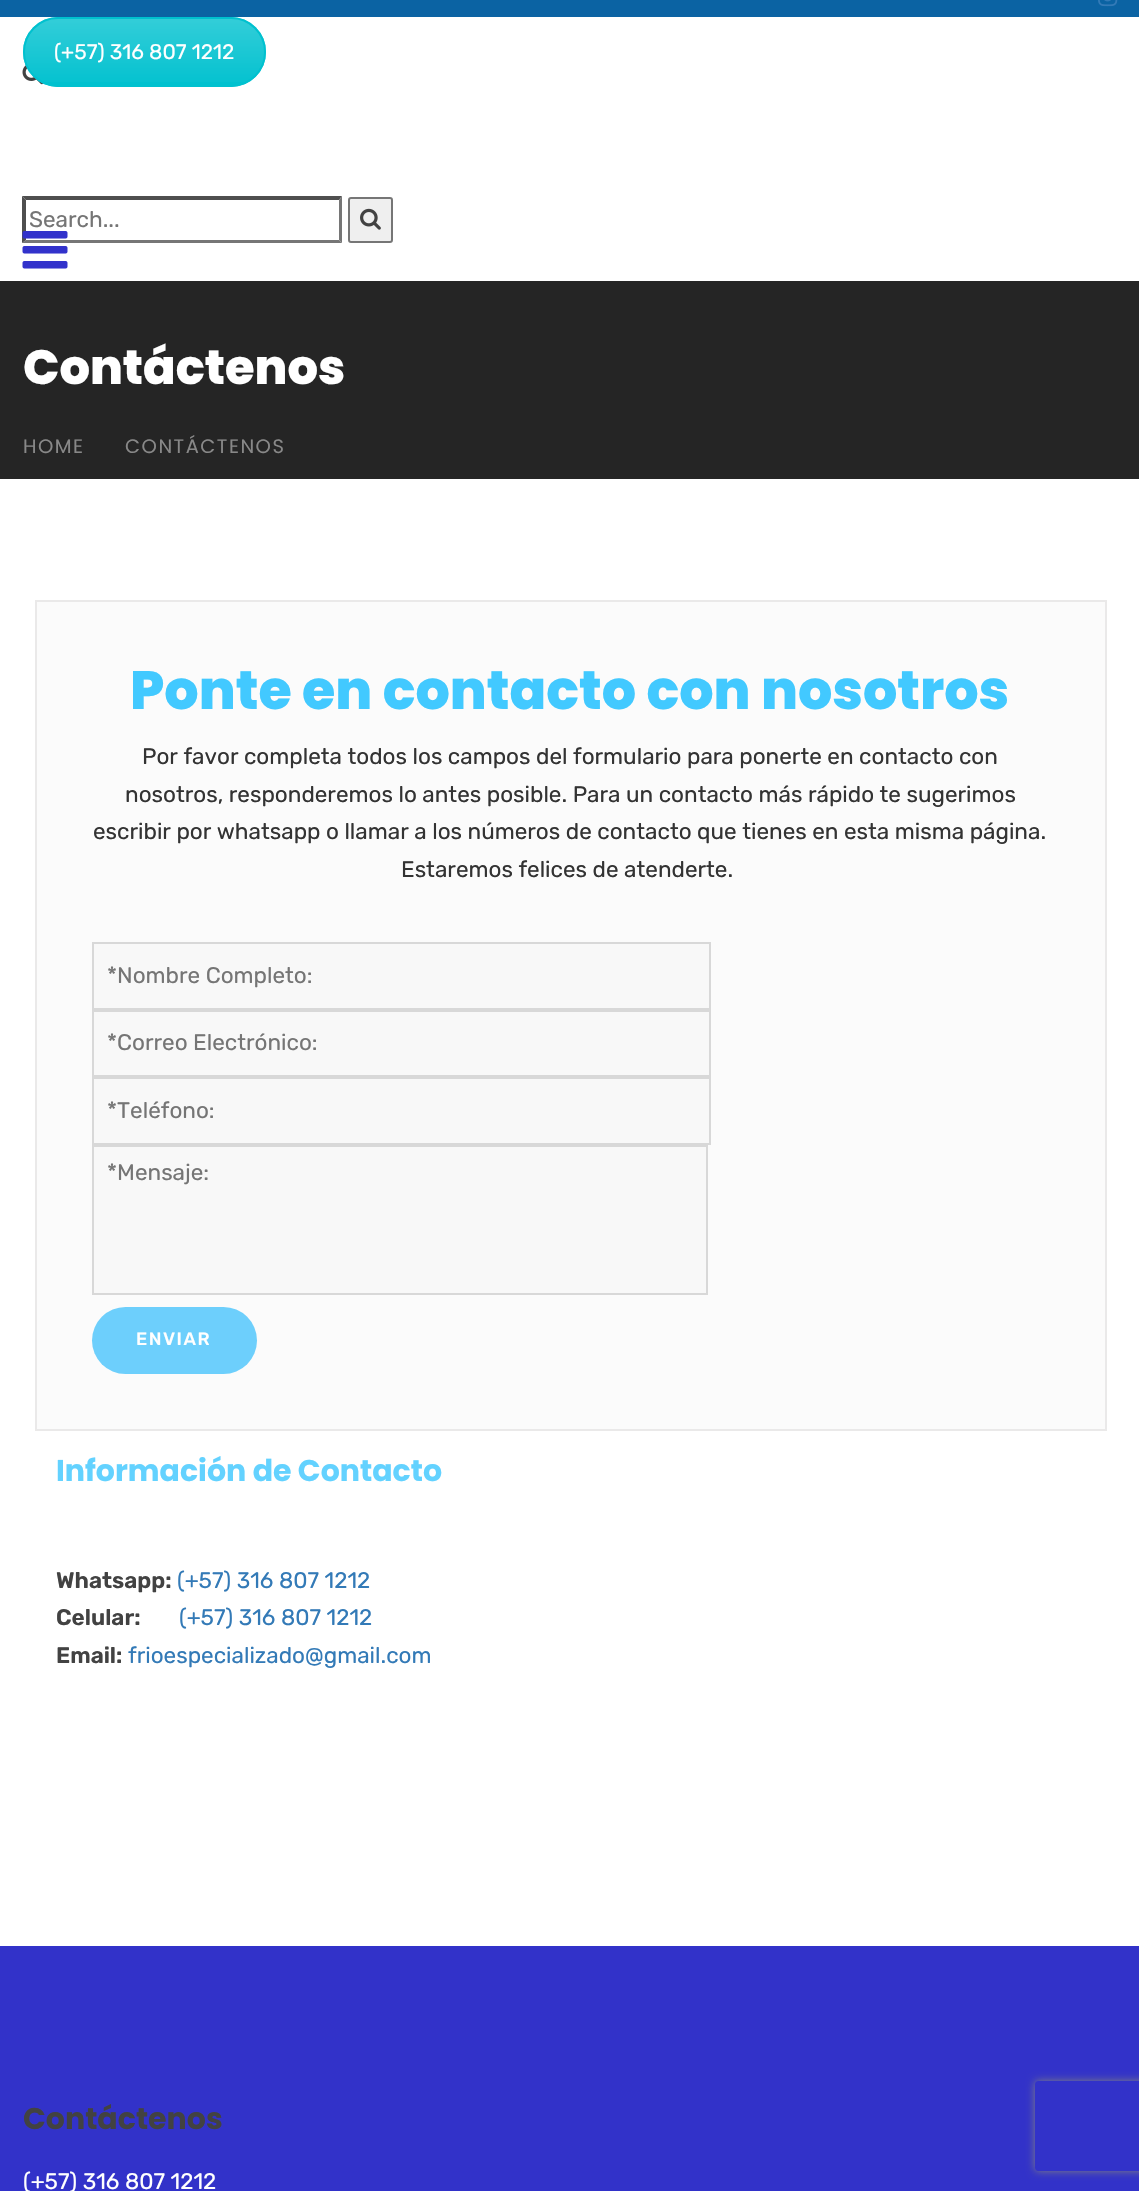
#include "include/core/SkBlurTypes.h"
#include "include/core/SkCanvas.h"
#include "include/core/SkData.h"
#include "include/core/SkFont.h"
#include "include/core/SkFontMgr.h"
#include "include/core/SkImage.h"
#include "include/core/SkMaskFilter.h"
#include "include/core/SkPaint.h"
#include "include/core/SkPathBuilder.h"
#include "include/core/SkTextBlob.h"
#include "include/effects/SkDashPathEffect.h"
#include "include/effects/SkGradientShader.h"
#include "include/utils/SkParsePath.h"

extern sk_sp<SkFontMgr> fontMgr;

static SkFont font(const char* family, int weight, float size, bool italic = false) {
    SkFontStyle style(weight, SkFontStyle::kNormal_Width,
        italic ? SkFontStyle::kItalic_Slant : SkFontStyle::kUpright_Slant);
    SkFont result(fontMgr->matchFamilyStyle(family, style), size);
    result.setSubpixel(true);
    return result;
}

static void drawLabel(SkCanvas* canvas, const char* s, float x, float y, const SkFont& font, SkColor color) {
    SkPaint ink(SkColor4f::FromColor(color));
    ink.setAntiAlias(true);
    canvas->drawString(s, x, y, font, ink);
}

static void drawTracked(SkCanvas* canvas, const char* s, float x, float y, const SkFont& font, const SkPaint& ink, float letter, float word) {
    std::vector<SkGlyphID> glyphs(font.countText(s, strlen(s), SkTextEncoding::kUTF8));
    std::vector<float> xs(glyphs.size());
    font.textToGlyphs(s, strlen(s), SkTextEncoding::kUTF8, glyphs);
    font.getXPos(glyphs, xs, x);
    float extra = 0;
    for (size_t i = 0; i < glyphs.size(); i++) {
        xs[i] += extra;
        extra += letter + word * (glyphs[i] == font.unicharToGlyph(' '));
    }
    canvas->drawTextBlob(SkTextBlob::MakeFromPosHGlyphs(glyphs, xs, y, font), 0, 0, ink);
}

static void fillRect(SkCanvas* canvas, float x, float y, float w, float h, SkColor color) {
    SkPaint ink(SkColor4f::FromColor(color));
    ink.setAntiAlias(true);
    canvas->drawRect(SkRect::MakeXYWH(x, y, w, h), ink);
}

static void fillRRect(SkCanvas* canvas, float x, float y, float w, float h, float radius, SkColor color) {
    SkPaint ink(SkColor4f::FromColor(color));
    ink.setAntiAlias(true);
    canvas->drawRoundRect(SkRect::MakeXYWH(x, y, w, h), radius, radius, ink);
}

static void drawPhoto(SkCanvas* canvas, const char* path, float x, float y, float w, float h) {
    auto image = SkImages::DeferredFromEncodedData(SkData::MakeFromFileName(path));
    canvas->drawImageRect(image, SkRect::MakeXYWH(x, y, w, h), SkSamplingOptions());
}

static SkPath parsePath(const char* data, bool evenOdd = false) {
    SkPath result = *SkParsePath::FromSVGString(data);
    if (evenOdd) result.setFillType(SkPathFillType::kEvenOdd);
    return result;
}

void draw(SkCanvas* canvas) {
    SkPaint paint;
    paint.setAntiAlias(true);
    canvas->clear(0xFFFFFFFF);
    fillRect(canvas, 0, 0, 1139, 17, 0xFF0B63A3);
    drawPhoto(canvas, "assets/img1.png", 1098, 0, 20, 7);
    drawPhoto(canvas, "assets/img2.png", 22, 65, 22, 20);
    fillRRect(canvas, 23, 17, 243, 70, 35, 0xFF00C1CF);
    canvas->save();
    canvas->clipPath(parsePath("M58 17H231C250.5 17 266 32.5 266 52C266 71.5 250.5 87 231 87H58C38.5 87 23 71.5 23 52C23 32.5 38.5 17 58 17Z"), true);
    {
        const SkColor colors[] = {0x33FFFFFF, 0x03FFFFFF};
        const float stops[] = {0, 1};
        const SkPoint ends[] = {{144, 18}, {144, 86}};
        paint.setShader(SkGradientShader::MakeLinear(ends, colors, stops, 2, SkTileMode::kClamp));
        paint.setAlpha(255);
    }
    canvas->drawRect(SkRect::MakeXYWH(23, 18, 243, 64), paint);
    canvas->restore();
    paint.setStroke(true);
    paint.setStrokeWidth(2);
    paint.setShader(nullptr);
    paint.setColor(0xFF00C1CF);
    canvas->drawRoundRect(SkRect::MakeXYWH(24, 18, 241, 68), 34, 34, paint);
    SkFont font1 = font("Rubik", 400, 21);
    drawLabel(canvas, "(+57) 316 807 1212", 54, 59, font1, 0xFFFFFFFF);
    paint.setStroke(false);
    paint.setColor(0xFF4F4F4F);
    canvas->drawPath(parsePath("M22 196H342L339 200H26Z"), paint);
    paint.setColor(0xFF767676);
    canvas->drawPath(parsePath("M342 196V243L339 240V200Z"), paint);
    canvas->drawPath(parsePath("M342 243H22L26 240H339Z"), paint);
    paint.setColor(0xFF4F4F4F);
    canvas->drawPath(parsePath("M22 243V196L26 200V240Z"), paint);
    SkFont font2 = font("Rubik", 400, 22.5f);
    drawLabel(canvas, "Search...", 29, 227, font2, 0xFF757575);
    paint.setColor(0xFFEFEFEF);
    canvas->drawRoundRect(SkRect::MakeXYWH(349, 198, 43, 44), 2, 2, paint);
    paint.setStroke(true);
    paint.setColor(0xFF767676);
    canvas->drawRoundRect(SkRect::MakeXYWH(349, 198, 43, 44), 2, 2, paint);
    drawPhoto(canvas, "assets/img3.png", 360, 208, 21, 22);
    drawPhoto(canvas, "assets/img4.png", 22, 231, 46, 38);
    fillRect(canvas, 0, 281, 1139, 198, 0xFF252525);
    SkFont font3 = font("Poppins", 800, 48);
    drawLabel(canvas, "Contáctenos", 23, 384, font3, 0xFFFFFFFF);
    SkFont font4 = font("Poppins", 400, 19.5f);
    paint.setStroke(false);
    paint.setColor(0xFF888888);
    drawTracked(canvas, "HOME", 23, 453, font4, paint, 1.5f, 0);
    drawTracked(canvas, "CONTÁCTENOS", 125, 453, font4, paint, 1.5f, 0);
    paint.setColor(0xFFFBFBFB);
    canvas->drawRect(SkRect::MakeXYWH(36, 601, 1070, 829), paint);
    paint.setStroke(true);
    paint.setColor(0xFFEAE9E9);
    canvas->drawRect(SkRect::MakeXYWH(36, 601, 1070, 829), paint);
    SkFont font5 = font("Poppins", 800, 54);
    drawLabel(canvas, "Ponte en contacto con nosotros", 130, 709, font5, 0xFF42C9FF);
    drawLabel(canvas, "Por favor completa todos los campos del formulario para ponerte en contacto con", 142, 764, font2, 0xFF333333);
    drawLabel(canvas, "nosotros, responderemos lo antes posible. Para un contacto más rápido te sugerimos", 125, 802, font2, 0xFF333333);
    drawLabel(canvas, "escribir por whatsapp o llamar a los números de contacto que tienes en esta misma página.", 93, 839, font2, 0xFF333333);
    drawLabel(canvas, "Estaremos felices de atenderte.", 401, 877, font2, 0xFF333333);
    paint.setStroke(false);
    paint.setColor(0xFFF8F8F8);
    canvas->drawRect(SkRect::MakeXYWH(93, 943, 617, 66), paint);
    paint.setStroke(true);
    paint.setColor(0xFFD8D8D8);
    canvas->drawRect(SkRect::MakeXYWH(93, 943, 617, 66), paint);
    drawLabel(canvas, "*Nombre Completo:", 107, 983, font2, 0xFF757575);
    paint.setStroke(false);
    paint.setColor(0xFFF8F8F8);
    canvas->drawRect(SkRect::MakeXYWH(93, 1011, 617, 65), paint);
    paint.setStroke(true);
    paint.setColor(0xFFD8D8D8);
    canvas->drawRect(SkRect::MakeXYWH(93, 1011, 617, 65), paint);
    drawLabel(canvas, "*Correo Electrónico:", 107, 1050, font2, 0xFF757575);
    paint.setStroke(false);
    paint.setColor(0xFFF8F8F8);
    canvas->drawRect(SkRect::MakeXYWH(93, 1078, 617, 66), paint);
    paint.setStroke(true);
    paint.setColor(0xFFD8D8D8);
    canvas->drawRect(SkRect::MakeXYWH(93, 1078, 617, 66), paint);
    drawLabel(canvas, "*Teléfono:", 107, 1118, font2, 0xFF757575);
    paint.setStroke(false);
    paint.setColor(0xFFF8F8F8);
    canvas->drawRect(SkRect::MakeXYWH(93, 1146, 614, 148), paint);
    paint.setStroke(true);
    paint.setColor(0xFFD8D8D8);
    canvas->drawRect(SkRect::MakeXYWH(93, 1146, 614, 148), paint);
    drawLabel(canvas, "*Mensaje:", 107, 1180, font2, 0xFF757575);
    fillRRect(canvas, 92, 1307, 165, 67, 33.5f, 0xFF6DCFFC);
    SkFont font6 = font("Rubik", 500, 18);
    paint.setStroke(false);
    paint.setColor(0xFFFFFFFF);
    drawTracked(canvas, "ENVIAR", 136, 1345, font6, paint, 1.5f, 0);
    SkFont font7 = font("Poppins", 700, 30);
    drawLabel(canvas, "Información de Contacto", 56, 1481, font7, 0xFF63D2FF);
    SkFont font8 = font("Rubik", 600, 22.5f);
    drawLabel(canvas, "Whatsapp:", 56, 1588, font8, 0xFF424242);
    drawLabel(canvas, "(+57) 316 807 1212", 177, 1588, font2, 0xFF337AB7);
    drawLabel(canvas, "Celular:", 56, 1625, font8, 0xFF424242);
    drawLabel(canvas, "(+57) 316 807 1212", 179, 1625, font2, 0xFF337AB7);
    drawLabel(canvas, "Email:", 56, 1663, font8, 0xFF424242);
    drawLabel(canvas, "frioespecializado@gmail.com", 128, 1663, font2, 0xFF337AB7);
    fillRect(canvas, 0, 1946, 1139, 245, 0xFF3232C9);
    drawLabel(canvas, "Contáctenos", 23, 2129, font7, 0xFF424242);
    drawLabel(canvas, "(+57) 316 807 1212", 23, 2189, font2, 0xFFFFFFFF);
    canvas->save();
    canvas->clipPath(parsePath("M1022 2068H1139V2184H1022ZM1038 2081H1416C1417.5 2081 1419 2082.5 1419 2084V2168C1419 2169.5 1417.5 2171 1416 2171H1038C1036.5 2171 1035 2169.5 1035 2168V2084C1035 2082.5 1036.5 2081 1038 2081Z", true), true);
    paint.setColor(0xFF808080);
    paint.setMaskFilter(SkMaskFilter::MakeBlur(kNormal_SkBlurStyle, 4));
    canvas->drawRoundRect(SkRect::MakeXYWH(1035, 2081, 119, 90), 3, 3, paint);
    paint.setMaskFilter(nullptr);
    canvas->restore();
}
